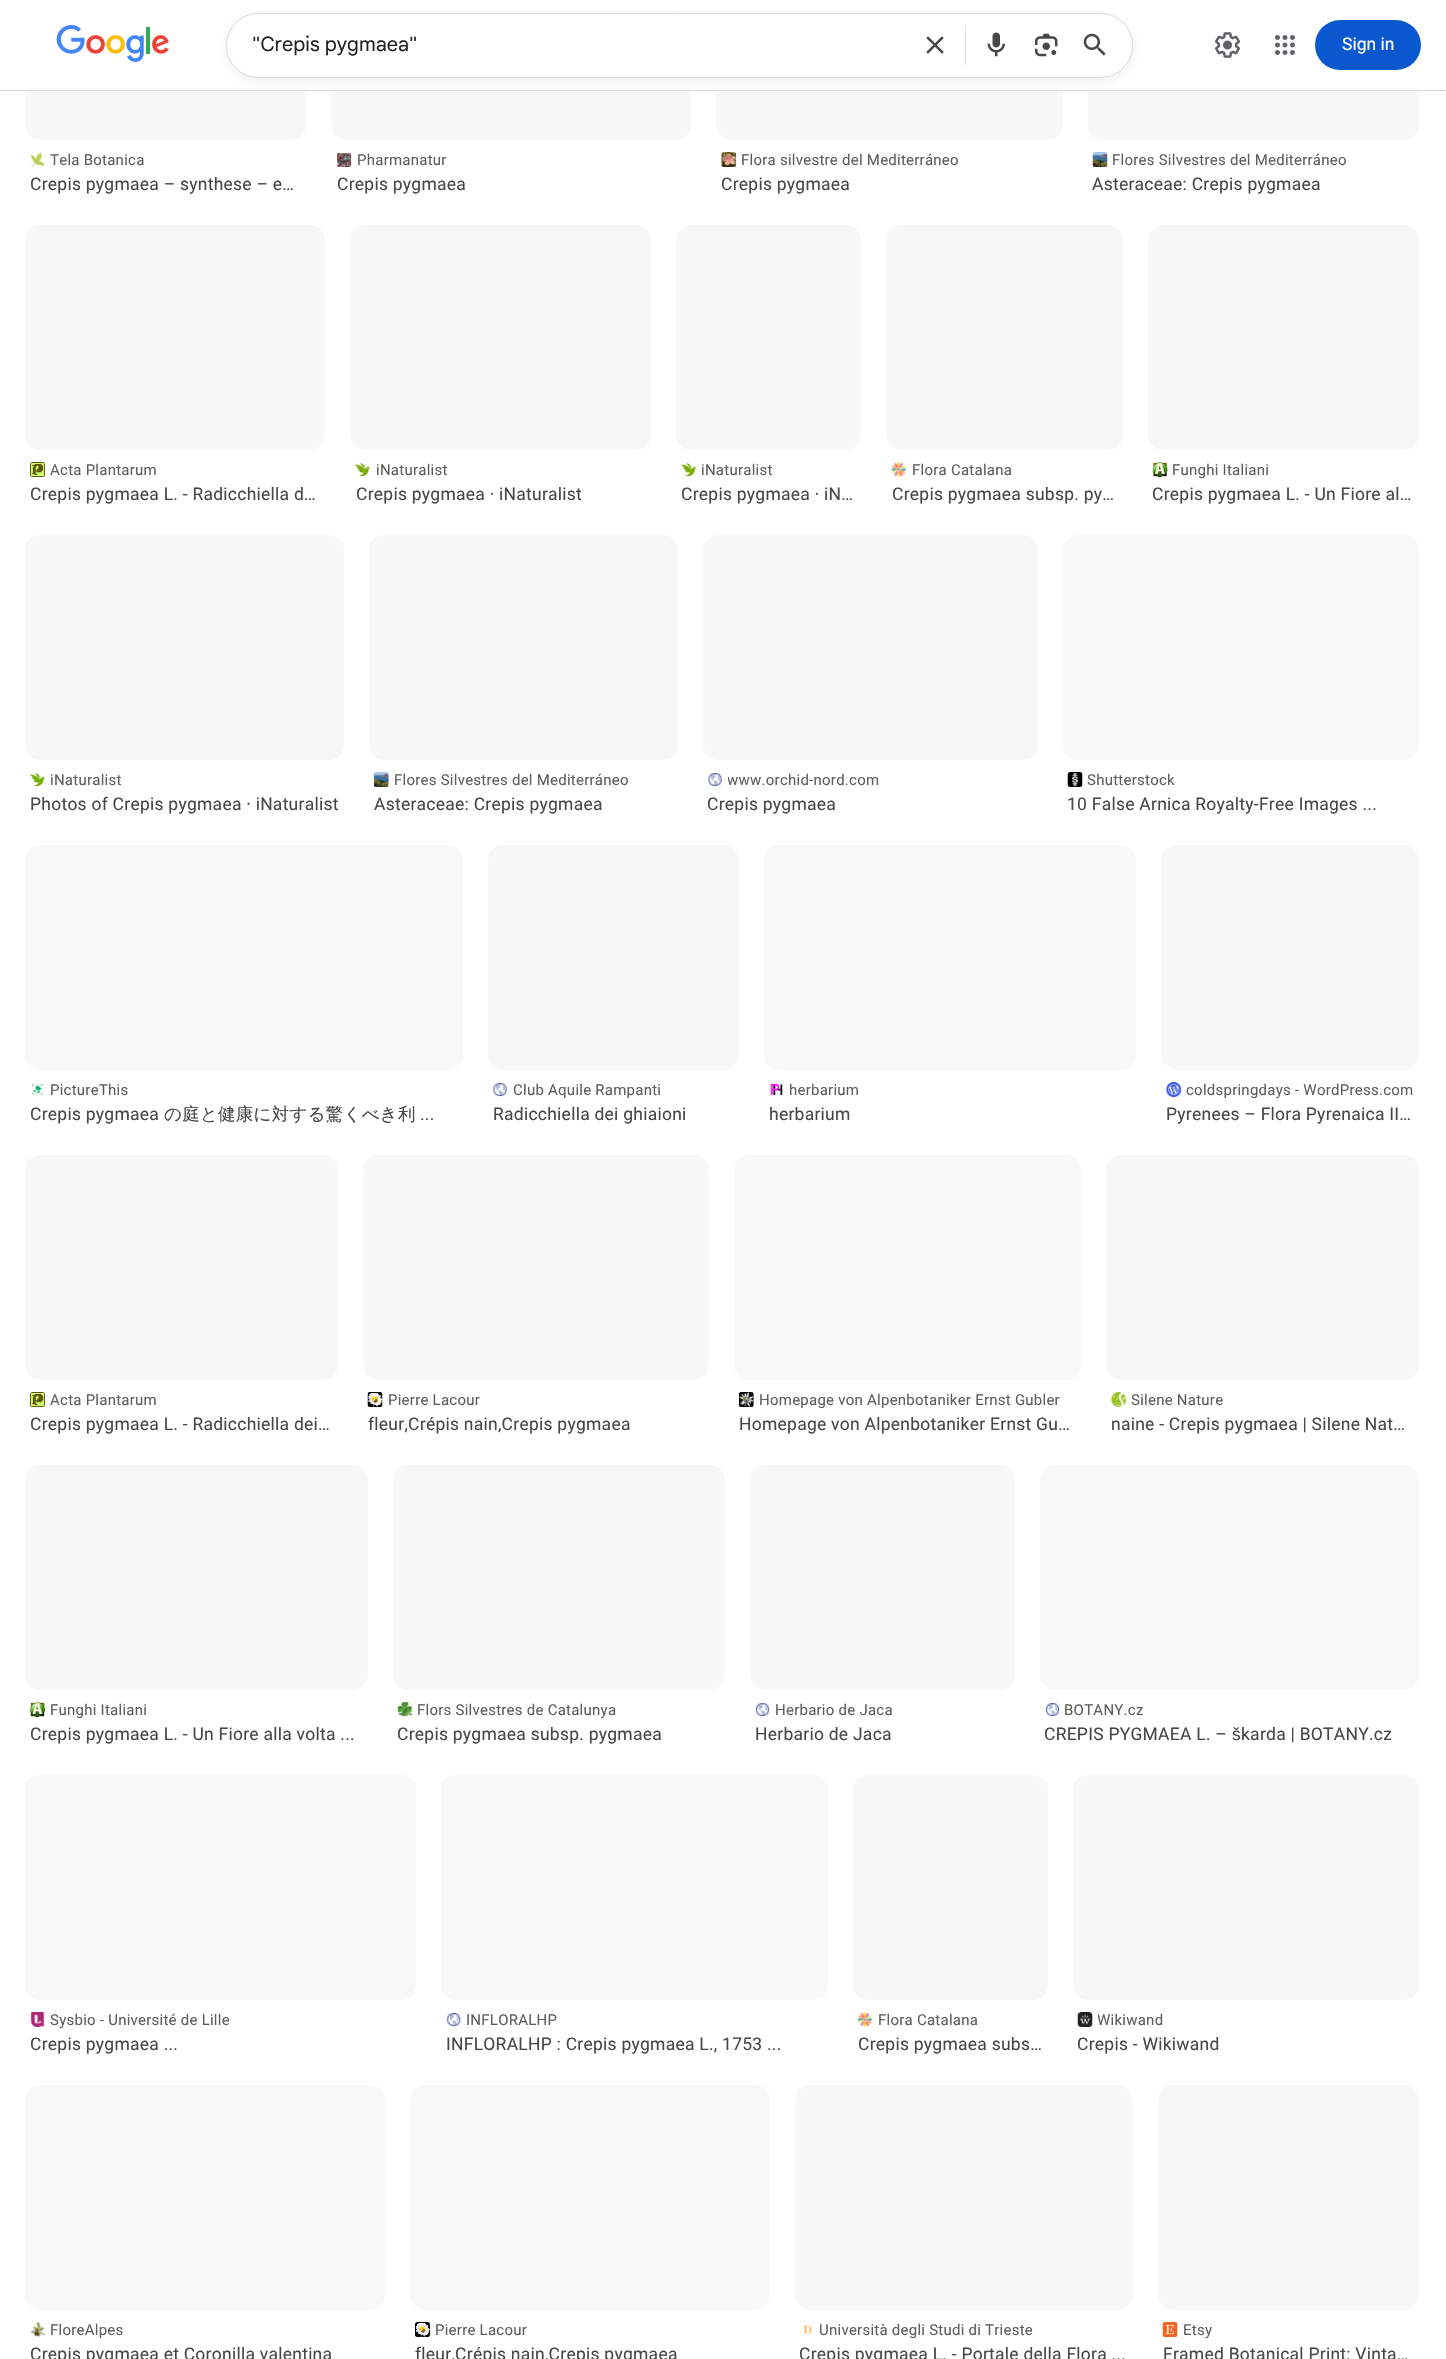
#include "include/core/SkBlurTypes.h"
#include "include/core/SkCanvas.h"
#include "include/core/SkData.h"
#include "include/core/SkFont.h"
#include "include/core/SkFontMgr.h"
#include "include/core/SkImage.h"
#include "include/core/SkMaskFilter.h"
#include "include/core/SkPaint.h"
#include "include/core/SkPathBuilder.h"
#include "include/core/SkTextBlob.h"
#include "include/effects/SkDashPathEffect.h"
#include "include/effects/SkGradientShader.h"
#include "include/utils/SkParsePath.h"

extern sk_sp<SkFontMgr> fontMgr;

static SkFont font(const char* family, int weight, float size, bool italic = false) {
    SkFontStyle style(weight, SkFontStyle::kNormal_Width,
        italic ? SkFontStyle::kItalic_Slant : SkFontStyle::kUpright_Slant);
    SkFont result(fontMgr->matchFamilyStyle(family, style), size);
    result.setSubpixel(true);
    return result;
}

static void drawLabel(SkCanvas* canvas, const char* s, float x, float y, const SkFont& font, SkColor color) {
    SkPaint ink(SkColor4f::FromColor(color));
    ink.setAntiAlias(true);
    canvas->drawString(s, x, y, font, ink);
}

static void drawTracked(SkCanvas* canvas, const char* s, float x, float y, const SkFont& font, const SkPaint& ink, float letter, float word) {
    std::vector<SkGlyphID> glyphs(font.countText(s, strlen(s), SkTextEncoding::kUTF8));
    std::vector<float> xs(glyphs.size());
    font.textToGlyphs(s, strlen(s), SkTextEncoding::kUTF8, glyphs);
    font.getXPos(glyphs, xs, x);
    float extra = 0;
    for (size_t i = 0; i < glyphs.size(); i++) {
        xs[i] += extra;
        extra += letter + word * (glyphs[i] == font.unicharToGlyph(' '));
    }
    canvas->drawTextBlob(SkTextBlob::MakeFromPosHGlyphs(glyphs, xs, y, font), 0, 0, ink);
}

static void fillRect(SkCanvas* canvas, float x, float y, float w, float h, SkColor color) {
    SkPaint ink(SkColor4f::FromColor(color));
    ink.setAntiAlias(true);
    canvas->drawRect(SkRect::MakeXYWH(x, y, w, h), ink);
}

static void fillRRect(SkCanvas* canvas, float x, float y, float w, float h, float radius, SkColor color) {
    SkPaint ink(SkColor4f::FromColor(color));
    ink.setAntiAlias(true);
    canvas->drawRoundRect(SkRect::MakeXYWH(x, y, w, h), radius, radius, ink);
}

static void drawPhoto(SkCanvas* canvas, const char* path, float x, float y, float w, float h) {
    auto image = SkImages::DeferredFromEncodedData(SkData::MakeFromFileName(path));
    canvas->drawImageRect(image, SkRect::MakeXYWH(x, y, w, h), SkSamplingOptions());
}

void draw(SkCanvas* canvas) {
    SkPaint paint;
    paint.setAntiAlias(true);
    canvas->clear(0xFFFFFFFF);
    fillRRect(canvas, 25, -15, 281, 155, 15, 0xFFF7F7F7);
    fillRRect(canvas, 331, -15, 360, 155, 15, 0xFFF7F7F7);
    fillRRect(canvas, 716, -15, 347, 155, 15, 0xFFF7F7F7);
    fillRRect(canvas, 1088, -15, 331, 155, 15, 0xFFF7F7F7);
    fillRect(canvas, 0, 90, 1446, 1, 0xFFDADCE0);
    fillRect(canvas, 25, 0, 1394, 90, 0xFFFFFFFF);
    drawPhoto(canvas, "assets/img1.png", 56, 25, 113, 37);
    paint.setColor(0x141F1F1F);
    paint.setMaskFilter(SkMaskFilter::MakeBlur(kNormal_SkBlurStyle, 6));
    canvas->drawRoundRect(SkRect::MakeXYWH(226, 16, 907, 65), 32.5f, 32.5f, paint);
    paint.setMaskFilter(nullptr);
    paint.setColor(0xFFFFFFFF);
    canvas->drawRoundRect(SkRect::MakeXYWH(226.5f, 13.5f, 906, 64), 32, 32, paint);
    paint.setStroke(true);
    paint.setStrokeWidth(1);
    paint.setColor(0xFFDADCE0);
    canvas->drawRoundRect(SkRect::MakeXYWH(226.5f, 13.5f, 906, 64), 32, 32, paint);
    SkFont font1 = font("Google Sans", 400, 20);
    drawLabel(canvas, "\"Crepis pygmaea\"", 252, 51, font1, 0xFF212121);
    drawPhoto(canvas, "assets/img2.png", 926, 36, 18, 18);
    fillRect(canvas, 965, 25, 1, 40, 0xFFDADCE0);
    drawPhoto(canvas, "assets/img3.png", 987, 32, 18, 25);
    drawPhoto(canvas, "assets/img4.png", 1035, 33, 23, 24);
    drawPhoto(canvas, "assets/img5.png", 1083, 33, 23, 23);
    drawPhoto(canvas, "assets/img6.png", 1215, 32, 25, 26);
    drawPhoto(canvas, "assets/img7.png", 1275, 35, 20, 20);
    fillRRect(canvas, 1315, 20, 106, 50, 25, 0xFF0B57D0);
    SkFont font2 = font("Roboto", 400, 17.5f);
    drawLabel(canvas, "Sign in", 1342, 50, font2, 0xFFFFFFFF);
    drawPhoto(canvas, "assets/img8.png", 30, 152, 15, 15);
    SkFont font3 = font("Roboto", 400, 15);
    paint.setStroke(false);
    paint.setColor(0xFF5E5E5E);
    drawTracked(canvas, "Tela Botanica", 50, 165, font3, paint, 0.25f, 0);
    paint.setColor(0xFF474747);
    drawTracked(canvas, "Crepis pygmaea – synthese – e…", 30, 190, font2, paint, 0.25f, 0);
    drawPhoto(canvas, "assets/img9.png", 337, 153, 15, 14);
    paint.setColor(0xFF5E5E5E);
    drawTracked(canvas, "Pharmanatur", 357, 165, font3, paint, 0.25f, 0);
    paint.setColor(0xFF474747);
    drawTracked(canvas, "Crepis pygmaea", 337, 190, font2, paint, 0.25f, 0);
    drawPhoto(canvas, "assets/img10.png", 721, 152, 16, 15);
    paint.setColor(0xFF5E5E5E);
    drawTracked(canvas, "Flora silvestre del Mediterráneo", 741, 165, font3, paint, 0.25f, 0);
    paint.setColor(0xFF474747);
    drawTracked(canvas, "Crepis pygmaea", 721, 190, font2, paint, 0.25f, 0);
    drawPhoto(canvas, "assets/img11.png", 1092, 152, 16, 15);
    paint.setColor(0xFF5E5E5E);
    drawTracked(canvas, "Flores Silvestres del Mediterráneo", 1112, 165, font3, paint, 0.25f, 0);
    paint.setColor(0xFF474747);
    drawTracked(canvas, "Asteraceae: Crepis pygmaea", 1092, 190, font2, paint, 0.25f, 0);
    fillRRect(canvas, 25, 225, 300, 225, 15, 0xFFF7F7F7);
    drawPhoto(canvas, "assets/img12.png", 30, 462, 15, 15);
    paint.setColor(0xFF5E5E5E);
    drawTracked(canvas, "Acta Plantarum", 50, 475, font3, paint, 0.25f, 0);
    paint.setColor(0xFF474747);
    drawTracked(canvas, "Crepis pygmaea L. - Radicchiella d…", 30, 500, font2, paint, 0.25f, 0);
    fillRRect(canvas, 350, 225, 301, 225, 15, 0xFFF7F7F7);
    drawPhoto(canvas, "assets/img13.png", 355, 463, 15, 14);
    paint.setColor(0xFF5E5E5E);
    drawTracked(canvas, "iNaturalist", 376, 475, font3, paint, 0.25f, 0);
    paint.setColor(0xFF474747);
    drawTracked(canvas, "Crepis pygmaea · iNaturalist", 356, 500, font2, paint, 0.25f, 0);
    fillRRect(canvas, 676, 225, 185, 225, 15, 0xFFF7F7F7);
    drawPhoto(canvas, "assets/img14.png", 681, 463, 16, 14);
    paint.setColor(0xFF5E5E5E);
    drawTracked(canvas, "iNaturalist", 701, 475, font3, paint, 0.25f, 0);
    paint.setColor(0xFF474747);
    drawTracked(canvas, "Crepis pygmaea · iN…", 681, 500, font2, paint, 0.25f, 0);
    fillRRect(canvas, 886, 225, 237, 225, 15, 0xFFF7F7F7);
    drawPhoto(canvas, "assets/img15.png", 891, 462, 16, 15);
    paint.setColor(0xFF5E5E5E);
    drawTracked(canvas, "Flora Catalana", 912, 475, font3, paint, 0.25f, 0);
    paint.setColor(0xFF474747);
    drawTracked(canvas, "Crepis pygmaea subsp. py…", 892, 500, font2, paint, 0.25f, 0);
    fillRRect(canvas, 1148, 225, 271, 225, 15, 0xFFF7F7F7);
    drawPhoto(canvas, "assets/img16.png", 1152, 462, 16, 15);
    paint.setColor(0xFF5E5E5E);
    drawTracked(canvas, "Funghi Italiani", 1172, 475, font3, paint, 0.25f, 0);
    paint.setColor(0xFF474747);
    drawTracked(canvas, "Crepis pygmaea L. - Un Fiore al…", 1152, 500, font2, paint, 0.25f, 0);
    fillRRect(canvas, 25, 535, 319, 225, 15, 0xFFF7F7F7);
    drawPhoto(canvas, "assets/img17.png", 30, 773, 15, 14);
    paint.setColor(0xFF5E5E5E);
    drawTracked(canvas, "iNaturalist", 50, 785, font3, paint, 0.25f, 0);
    paint.setColor(0xFF474747);
    drawTracked(canvas, "Photos of Crepis pygmaea · iNaturalist", 30, 810, font2, paint, 0.25f, 0);
    fillRRect(canvas, 369, 535, 309, 225, 15, 0xFFF7F7F7);
    drawPhoto(canvas, "assets/img18.png", 373, 772, 16, 15);
    paint.setColor(0xFF5E5E5E);
    drawTracked(canvas, "Flores Silvestres del Mediterráneo", 394, 785, font3, paint, 0.25f, 0);
    paint.setColor(0xFF474747);
    drawTracked(canvas, "Asteraceae: Crepis pygmaea", 374, 810, font2, paint, 0.25f, 0);
    fillRRect(canvas, 703, 535, 335, 225, 15, 0xFFF7F7F7);
    drawPhoto(canvas, "assets/img19.png", 708, 773, 14, 14);
    canvas->save();
    canvas->clipRect(SkRect::MakeXYWH(728, 770, 151, 20));
    paint.setColor(0xFF5E5E5E);
    drawTracked(canvas, "www.orchid-nord.com", 727, 785, font3, paint, 0.25f, 0);
    canvas->restore();
    paint.setColor(0xFF474747);
    drawTracked(canvas, "Crepis pygmaea", 707, 810, font2, paint, 0.25f, 0);
    fillRRect(canvas, 1063, 535, 356, 225, 15, 0xFFF8F8F8);
    drawPhoto(canvas, "assets/img20.png", 1067, 772, 16, 15);
    paint.setColor(0xFF5E5E5E);
    drawTracked(canvas, "Shutterstock", 1087, 785, font3, paint, 0.25f, 0);
    paint.setColor(0xFF474747);
    drawTracked(canvas, "10 False Arnica Royalty-Free Images ...", 1067, 810, font2, paint, 0.25f, 0);
    fillRRect(canvas, 25, 845, 438, 225, 15, 0xFFF8F8F8);
    drawPhoto(canvas, "assets/img21.png", 31, 1083, 13, 13);
    paint.setColor(0xFF5E5E5E);
    drawTracked(canvas, "PictureThis", 50, 1095, font3, paint, 0.25f, 0);
    paint.setColor(0xFF474747);
    drawTracked(canvas, "Crepis pygmaea", 30, 1120, font2, paint, 0.25f, 0);
    SkFont font4 = font("WenQuanYi Zen Hei", 500, 17.5f);
    drawTracked(canvas, "の庭と健康に対する驚くべき利", 164, 1120, font4, paint, 0.25f, 0);
    drawTracked(canvas, "...", 420, 1120, font2, paint, 0.25f, 0);
    fillRRect(canvas, 488, 845, 251, 225, 15, 0xFFF7F7F7);
    drawPhoto(canvas, "assets/img19.png", 493, 1083, 14, 14);
    paint.setColor(0xFF5E5E5E);
    drawTracked(canvas, "Club Aquile Rampanti", 513, 1095, font3, paint, 0.25f, 0);
    paint.setColor(0xFF474747);
    drawTracked(canvas, "Radicchiella dei ghiaioni", 493, 1120, font2, paint, 0.25f, 0);
    fillRRect(canvas, 764, 845, 372, 225, 15, 0xFFF8F8F8);
    drawPhoto(canvas, "assets/img22.png", 770, 1083, 13, 13);
    paint.setColor(0xFF5E5E5E);
    drawTracked(canvas, "herbarium", 789, 1095, font3, paint, 0.25f, 0);
    paint.setColor(0xFF474747);
    drawTracked(canvas, "herbarium", 769, 1120, font2, paint, 0.25f, 0);
    fillRRect(canvas, 1161, 845, 258, 225, 15, 0xFFF7F7F7);
    drawPhoto(canvas, "assets/img23.png", 1166, 1082, 16, 15);
    paint.setColor(0xFF5E5E5E);
    drawTracked(canvas, "coldspringdays - WordPress.com", 1186, 1095, font3, paint, 0.25f, 0);
    paint.setColor(0xFF474747);
    drawTracked(canvas, "Pyrenees – Flora Pyrenaica II…", 1166, 1120, font2, paint, 0.25f, 0);
    fillRRect(canvas, 25, 1155, 313, 225, 15, 0xFFF7F7F7);
    drawPhoto(canvas, "assets/img12.png", 30, 1392, 15, 15);
    paint.setColor(0xFF5E5E5E);
    drawTracked(canvas, "Acta Plantarum", 50, 1405, font3, paint, 0.25f, 0);
    paint.setColor(0xFF474747);
    drawTracked(canvas, "Crepis pygmaea L. - Radicchiella dei…", 30, 1430, font2, paint, 0.25f, 0);
    fillRRect(canvas, 363, 1155, 346, 225, 15, 0xFFF7F7F7);
    drawPhoto(canvas, "assets/img24.png", 367, 1392, 16, 15);
    paint.setColor(0xFF5E5E5E);
    drawTracked(canvas, "Pierre Lacour", 388, 1405, font3, paint, 0.25f, 0);
    paint.setColor(0xFF474747);
    drawTracked(canvas, "fleur,Crépis nain,Crepis pygmaea", 368, 1430, font2, paint, 0.25f, 0);
    fillRRect(canvas, 734, 1155, 347, 225, 15, 0xFFF8F8F8);
    drawPhoto(canvas, "assets/img25.png", 738, 1392, 16, 15);
    paint.setColor(0xFF5E5E5E);
    drawTracked(canvas, "Homepage von Alpenbotaniker Ernst Gubler", 759, 1405, font3, paint, 0.25f, 0);
    paint.setColor(0xFF474747);
    drawTracked(canvas, "Homepage von Alpenbotaniker Ernst Gu…", 739, 1430, font2, paint, 0.25f, 0);
    fillRRect(canvas, 1106, 1155, 313, 225, 15, 0xFFF7F7F7);
    drawPhoto(canvas, "assets/img26.png", 1111, 1392, 16, 15);
    paint.setColor(0xFF5E5E5E);
    drawTracked(canvas, "Silene Nature", 1131, 1405, font3, paint, 0.25f, 0);
    paint.setColor(0xFF474747);
    drawTracked(canvas, "naine - Crepis pygmaea | Silene Nat…", 1111, 1430, font2, paint, 0.25f, 0);
    fillRRect(canvas, 25, 1465, 343, 225, 15, 0xFFF7F7F7);
    drawPhoto(canvas, "assets/img27.png", 30, 1702, 15, 15);
    paint.setColor(0xFF5E5E5E);
    drawTracked(canvas, "Funghi Italiani", 50, 1715, font3, paint, 0.25f, 0);
    paint.setColor(0xFF474747);
    drawTracked(canvas, "Crepis pygmaea L. - Un Fiore alla volta ...", 30, 1740, font2, paint, 0.25f, 0);
    fillRRect(canvas, 393, 1465, 332, 225, 15, 0xFFF7F7F7);
    drawPhoto(canvas, "assets/img28.png", 397, 1702, 16, 15);
    paint.setColor(0xFF5E5E5E);
    drawTracked(canvas, "Flors Silvestres de Catalunya", 417, 1715, font3, paint, 0.25f, 0);
    paint.setColor(0xFF474747);
    drawTracked(canvas, "Crepis pygmaea subsp. pygmaea", 397, 1740, font2, paint, 0.25f, 0);
    fillRRect(canvas, 750, 1465, 265, 225, 15, 0xFFF7F7F7);
    drawPhoto(canvas, "assets/img29.png", 756, 1703, 14, 14);
    paint.setColor(0xFF5E5E5E);
    drawTracked(canvas, "Herbario de Jaca", 775, 1715, font3, paint, 0.25f, 0);
    paint.setColor(0xFF474747);
    drawTracked(canvas, "Herbario de Jaca", 755, 1740, font2, paint, 0.25f, 0);
    fillRRect(canvas, 1040, 1465, 379, 225, 15, 0xFFF8F8F8);
    drawPhoto(canvas, "assets/img30.png", 1046, 1703, 14, 14);
    paint.setColor(0xFF5E5E5E);
    drawTracked(canvas, "BOTANY.cz", 1064, 1715, font3, paint, 0.25f, 0);
    paint.setColor(0xFF474747);
    drawTracked(canvas, "CREPIS PYGMAEA L. –", 1044, 1740, font2, paint, 0.25f, 0);
    SkFont font5 = font("Liberation Sans", 400, 17.5f);
    drawTracked(canvas, "š", 1232, 1740, font5, paint, 0.25f, 0);
    drawTracked(canvas, "karda | BOTANY.cz", 1241, 1740, font2, paint, 0.25f, 0);
    fillRRect(canvas, 25, 1775, 391, 225, 15, 0xFFF8F8F8);
    drawPhoto(canvas, "assets/img31.png", 30, 2012, 15, 15);
    paint.setColor(0xFF5E5E5E);
    drawTracked(canvas, "Sysbio - Université de Lille", 50, 2025, font3, paint, 0.25f, 0);
    paint.setColor(0xFF474747);
    drawTracked(canvas, "Crepis pygmaea ...", 30, 2050, font2, paint, 0.25f, 0);
    fillRRect(canvas, 441, 1775, 387, 225, 15, 0xFFF8F8F8);
    drawPhoto(canvas, "assets/img32.png", 447, 2013, 14, 14);
    paint.setColor(0xFF5E5E5E);
    drawTracked(canvas, "INFLORALHP", 466, 2025, font3, paint, 0.25f, 0);
    paint.setColor(0xFF474747);
    drawTracked(canvas, "INFLORALHP : Crepis pygmaea L., 1753 ...", 446, 2050, font2, paint, 0.25f, 0);
    fillRRect(canvas, 853, 1775, 195, 225, 15, 0xFFF7F7F7);
    drawPhoto(canvas, "assets/img33.png", 857, 2012, 16, 15);
    paint.setColor(0xFF5E5E5E);
    drawTracked(canvas, "Flora Catalana", 878, 2025, font3, paint, 0.25f, 0);
    paint.setColor(0xFF474747);
    drawTracked(canvas, "Crepis pygmaea subs…", 858, 2050, font2, paint, 0.25f, 0);
    fillRRect(canvas, 1073, 1775, 346, 225, 15, 0xFFF7F7F7);
    drawPhoto(canvas, "assets/img34.png", 1077, 2012, 16, 15);
    canvas->save();
    canvas->clipRect(SkRect::MakeXYWH(1098, 2010, 66, 20));
    paint.setColor(0xFF5E5E5E);
    drawTracked(canvas, "Wikiwand", 1097, 2025, font3, paint, 0.25f, 0);
    canvas->restore();
    paint.setColor(0xFF474747);
    drawTracked(canvas, "Crepis - Wikiwand", 1077, 2050, font2, paint, 0.25f, 0);
    fillRRect(canvas, 25, 2085, 360, 225, 15, 0xFFF8F8F8);
    drawPhoto(canvas, "assets/img35.png", 30, 2322, 15, 15);
    paint.setColor(0xFF5E5E5E);
    drawTracked(canvas, "FloreAlpes", 50, 2335, font3, paint, 0.25f, 0);
    paint.setColor(0xFF474747);
    drawTracked(canvas, "Crepis pygmaea et Coronilla valentina", 30, 2360, font2, paint, 0.25f, 0);
    fillRRect(canvas, 410, 2085, 360, 225, 15, 0xFFF8F8F8);
    drawPhoto(canvas, "assets/img36.png", 415, 2322, 15, 15);
    paint.setColor(0xFF5E5E5E);
    drawTracked(canvas, "Pierre Lacour", 435, 2335, font3, paint, 0.25f, 0);
    paint.setColor(0xFF474747);
    drawTracked(canvas, "fleur,Crépis nain,Crepis pygmaea", 415, 2360, font2, paint, 0.25f, 0);
    fillRRect(canvas, 795, 2085, 338, 225, 15, 0xFFF7F7F7);
    drawPhoto(canvas, "assets/img37.png", 803, 2325, 9, 9);
    paint.setColor(0xFF5E5E5E);
    drawTracked(canvas, "Università degli Studi di Trieste", 819, 2335, font3, paint, 0.25f, 0);
    paint.setColor(0xFF474747);
    drawTracked(canvas, "Crepis pygmaea L. - Portale della Flora ...", 799, 2360, font2, paint, 0.25f, 0);
    fillRRect(canvas, 1158, 2085, 261, 225, 15, 0xFFF7F7F7);
    drawPhoto(canvas, "assets/img38.png", 1162, 2322, 16, 15);
    paint.setColor(0xFF5E5E5E);
    drawTracked(canvas, "Etsy", 1183, 2335, font3, paint, 0.25f, 0);
    paint.setColor(0xFF474747);
    drawTracked(canvas, "Framed Botanical Print: Vinta…", 1163, 2360, font2, paint, 0.25f, 0);
}
